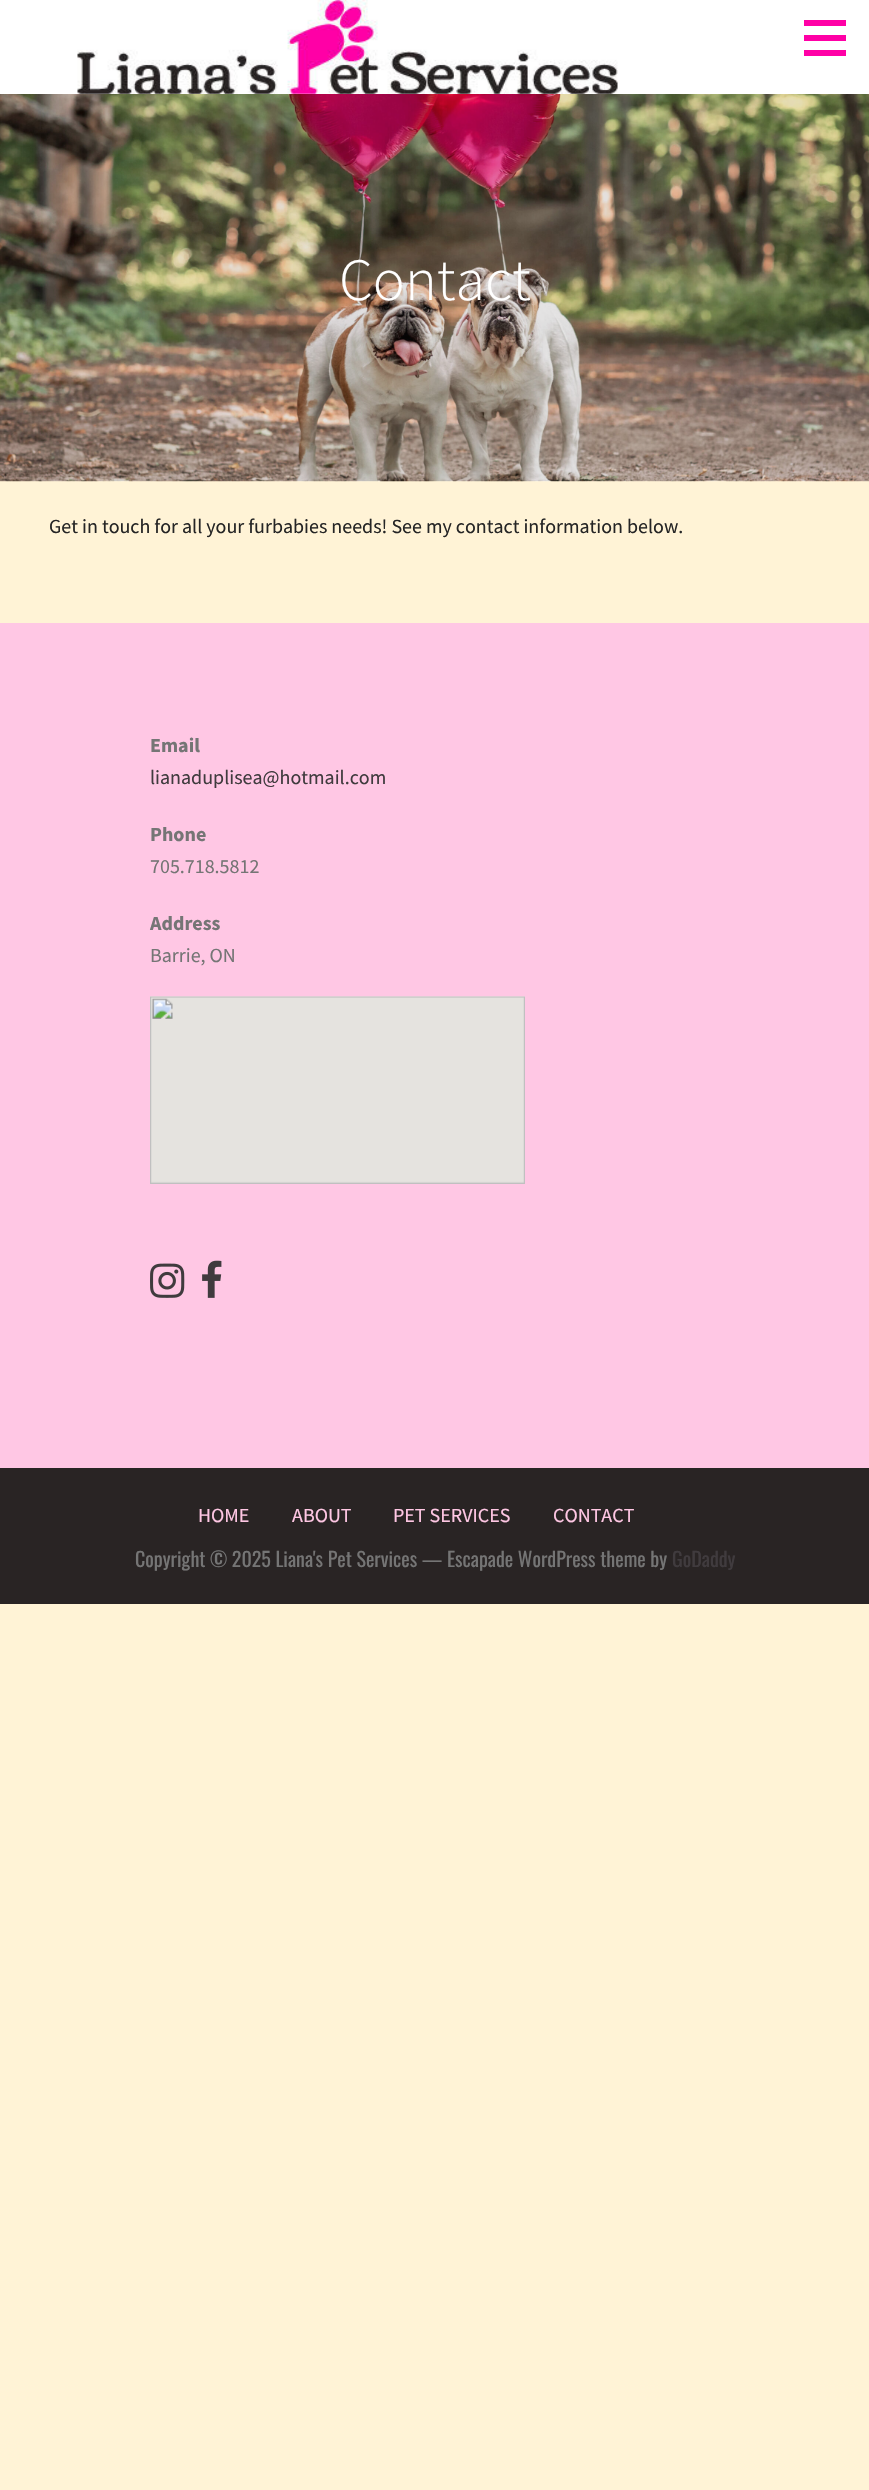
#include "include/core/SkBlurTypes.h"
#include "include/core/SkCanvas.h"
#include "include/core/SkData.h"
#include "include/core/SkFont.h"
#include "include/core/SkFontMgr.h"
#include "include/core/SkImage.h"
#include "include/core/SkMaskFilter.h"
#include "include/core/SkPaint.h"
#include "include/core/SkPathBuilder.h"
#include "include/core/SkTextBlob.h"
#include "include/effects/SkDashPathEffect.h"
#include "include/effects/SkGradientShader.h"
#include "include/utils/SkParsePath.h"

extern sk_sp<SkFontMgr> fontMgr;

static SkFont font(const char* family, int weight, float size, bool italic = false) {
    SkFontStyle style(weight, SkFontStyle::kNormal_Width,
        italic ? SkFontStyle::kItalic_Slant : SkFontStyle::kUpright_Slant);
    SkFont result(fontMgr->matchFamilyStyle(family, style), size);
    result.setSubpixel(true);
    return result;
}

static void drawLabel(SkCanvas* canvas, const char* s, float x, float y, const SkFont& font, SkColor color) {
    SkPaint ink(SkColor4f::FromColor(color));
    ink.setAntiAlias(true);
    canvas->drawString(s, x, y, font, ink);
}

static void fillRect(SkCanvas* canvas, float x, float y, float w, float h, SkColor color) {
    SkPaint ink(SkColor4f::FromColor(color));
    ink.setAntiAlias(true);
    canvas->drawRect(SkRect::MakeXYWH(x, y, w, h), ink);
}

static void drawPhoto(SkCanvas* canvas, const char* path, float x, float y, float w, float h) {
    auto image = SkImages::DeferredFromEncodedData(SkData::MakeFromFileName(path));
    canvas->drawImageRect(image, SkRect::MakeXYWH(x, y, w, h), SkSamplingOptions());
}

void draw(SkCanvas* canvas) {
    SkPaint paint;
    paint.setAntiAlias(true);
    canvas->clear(0xFFFFF3D6);
    drawPhoto(canvas, "assets/img1.png", 0, 94, 869, 388);
    fillRect(canvas, 0, 0, 869, 94, 0xFFFFFFFF);
    drawPhoto(canvas, "assets/img2.png", 77, 0, 541, 94);
    fillRect(canvas, 804, 20, 42, 6, 0xFFFF00A6);
    fillRect(canvas, 804, 35, 42, 6, 0xFFFF00A6);
    fillRect(canvas, 804, 50, 42, 6, 0xFFFF00A6);
    SkFont font1 = font("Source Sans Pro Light", 300, 60);
    drawLabel(canvas, "Contact", 339, 300, font1, 0xFFFFFFFF);
    SkFont font2 = font("Source Sans Pro", 400, 20);
    drawLabel(canvas, "Get in touch for all your furbabies needs! See my contact information below.", 49, 533, font2, 0xFF252525);
    fillRect(canvas, 0, 623, 869, 845, 0xFFFFC7E4);
    SkFont font3 = font("Source Sans Pro", 700, 20);
    drawLabel(canvas, "Email", 150, 752, font3, 0xFF757575);
    drawLabel(canvas, "lianaduplisea@hotmail.com", 150, 784, font2, 0xFF403B3E);
    drawLabel(canvas, "Phone", 150, 841, font3, 0xFF757575);
    drawLabel(canvas, "705.718.5812", 150, 873, font2, 0xFF757575);
    drawLabel(canvas, "Address", 150, 930, font3, 0xFF757575);
    drawLabel(canvas, "Barrie, ON", 150, 962, font2, 0xFF757575);
    drawPhoto(canvas, "assets/img3.png", 150, 996, 375, 188);
    drawPhoto(canvas, "assets/img4.png", 150, 1263, 35, 35);
    drawPhoto(canvas, "assets/img5.png", 202, 1260, 20, 38);
    fillRect(canvas, 0, 1468, 869, 136, 0xFF292424);
    drawLabel(canvas, "HOME", 198, 1522, font2, 0xFFFFC7E4);
    drawLabel(canvas, "ABOUT", 292, 1522, font2, 0xFFFFC7E4);
    drawLabel(canvas, "PET SERVICES", 393, 1522, font2, 0xFFFFC7E4);
    drawLabel(canvas, "CONTACT", 553, 1522, font2, 0xFFFFC7E4);
    SkFont font4 = font("Oswald", 400, 20);
    drawLabel(canvas, "Copyright © 2025 Liana's Pet Services — Escapade WordPress theme by", 135, 1567, font4, 0xFF757575);
    drawLabel(canvas, "GoDaddy", 672, 1567, font4, 0xFF403B3E);
}
